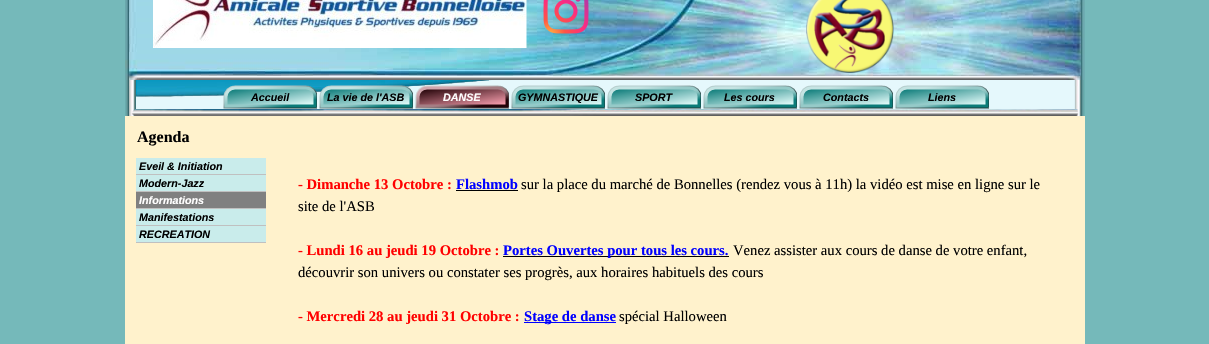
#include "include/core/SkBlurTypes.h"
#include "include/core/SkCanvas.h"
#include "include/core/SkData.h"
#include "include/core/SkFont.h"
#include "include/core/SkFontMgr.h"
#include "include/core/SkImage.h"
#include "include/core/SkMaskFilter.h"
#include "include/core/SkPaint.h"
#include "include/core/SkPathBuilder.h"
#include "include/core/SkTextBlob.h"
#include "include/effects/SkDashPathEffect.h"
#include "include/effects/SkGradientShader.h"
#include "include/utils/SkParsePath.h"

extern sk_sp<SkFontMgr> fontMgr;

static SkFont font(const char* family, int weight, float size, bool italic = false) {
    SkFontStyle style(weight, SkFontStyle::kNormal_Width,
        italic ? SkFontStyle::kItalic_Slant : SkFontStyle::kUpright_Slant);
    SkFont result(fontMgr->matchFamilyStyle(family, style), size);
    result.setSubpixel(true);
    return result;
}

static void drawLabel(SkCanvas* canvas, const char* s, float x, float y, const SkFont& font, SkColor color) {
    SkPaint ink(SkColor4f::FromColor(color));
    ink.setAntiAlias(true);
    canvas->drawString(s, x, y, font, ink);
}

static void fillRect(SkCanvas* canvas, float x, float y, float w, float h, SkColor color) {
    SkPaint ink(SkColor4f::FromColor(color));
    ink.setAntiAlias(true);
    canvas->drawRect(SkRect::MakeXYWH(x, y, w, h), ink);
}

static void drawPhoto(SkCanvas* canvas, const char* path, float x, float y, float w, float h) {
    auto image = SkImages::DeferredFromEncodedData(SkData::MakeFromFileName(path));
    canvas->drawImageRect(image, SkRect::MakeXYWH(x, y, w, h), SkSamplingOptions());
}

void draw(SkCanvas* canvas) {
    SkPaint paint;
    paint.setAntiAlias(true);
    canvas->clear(0xFF75B9BA);
    drawPhoto(canvas, "assets/img1.png", 125, 0, 960, 116);
    drawPhoto(canvas, "assets/img2.png", 153, 0, 374, 48);
    drawPhoto(canvas, "assets/img3.png", 543, 0, 46, 34);
    drawPhoto(canvas, "assets/img4.png", 806, 0, 88, 73);
    drawPhoto(canvas, "assets/img5.png", 223, 85, 94, 24);
    SkFont font1 = font("Liberation Sans", 700, 10.75f, true);
    drawLabel(canvas, "Accueil", 251, 101, font1, 0xFF000000);
    drawPhoto(canvas, "assets/img6.png", 319, 85, 94, 24);
    drawLabel(canvas, "La vie de l'ASB", 327, 101, font1, 0xFF000000);
    drawPhoto(canvas, "assets/img7.png", 415, 85, 94, 24);
    drawLabel(canvas, "DANSE", 443, 101, font1, 0xFFFFFFFF);
    drawPhoto(canvas, "assets/img8.png", 511, 85, 94, 24);
    drawLabel(canvas, "GYMNASTIQUE", 518, 101, font1, 0xFF000000);
    drawPhoto(canvas, "assets/img9.png", 607, 85, 94, 24);
    drawLabel(canvas, "SPORT", 635, 101, font1, 0xFF000000);
    drawPhoto(canvas, "assets/img9.png", 703, 85, 94, 24);
    drawLabel(canvas, "Les cours", 724, 101, font1, 0xFF000000);
    drawPhoto(canvas, "assets/img9.png", 799, 85, 94, 24);
    drawLabel(canvas, "Contacts", 823, 101, font1, 0xFF000000);
    drawPhoto(canvas, "assets/img9.png", 895, 85, 94, 24);
    drawLabel(canvas, "Liens", 928, 101, font1, 0xFF000000);
    fillRect(canvas, 125, 116, 960, 228, 0xFFFFF2CC);
    SkFont font2 = font("Liberation Serif", 700, 16);
    drawLabel(canvas, "Agenda", 137, 142, font2, 0xFF000000);
    fillRect(canvas, 136, 158, 130, 16, 0xFFC9ECEB);
    fillRect(canvas, 136, 174, 130, 1, 0xFFC0C0C0);
    drawLabel(canvas, "Eveil & Initiation", 139, 170, font1, 0xFF000000);
    fillRect(canvas, 136, 175, 130, 16, 0xFFC9ECEB);
    fillRect(canvas, 136, 191, 130, 1, 0xFFC0C0C0);
    drawLabel(canvas, "Modern-Jazz", 139, 187, font1, 0xFF000000);
    fillRect(canvas, 136, 192, 130, 16, 0xFF808080);
    fillRect(canvas, 136, 208, 130, 1, 0xFFC0C0C0);
    drawLabel(canvas, "Informations", 139, 204, font1, 0xFFFFFFFF);
    fillRect(canvas, 136, 209, 130, 16, 0xFFC9ECEB);
    fillRect(canvas, 136, 225, 130, 1, 0xFFC0C0C0);
    drawLabel(canvas, "Manifestations", 139, 221, font1, 0xFF000000);
    fillRect(canvas, 136, 226, 130, 16, 0xFFC9ECEB);
    fillRect(canvas, 136, 242, 130, 1, 0xFFC0C0C0);
    drawLabel(canvas, "RECREATION", 139, 238, font1, 0xFF000000);
    SkFont font3 = font("Liberation Serif", 700, 14.65f);
    drawLabel(canvas, "- Dimanche 13 Octobre :", 298, 189, font3, 0xFFFF0000);
    drawLabel(canvas, "Flashmob", 456, 189, font3, 0xFF0000FF);
    fillRect(canvas, 456, 190, 62, 1, 0xFF000000);
    SkFont font4 = font("Liberation Serif", 400, 14.65f);
    drawLabel(canvas, "sur la place du marché de Bonnelles (rendez vous à 11h) la vidéo est mise en ligne sur le", 521, 189, font4, 0xFF000000);
    drawLabel(canvas, "site de l'ASB", 298, 211, font4, 0xFF000000);
    drawLabel(canvas, "- Lundi 16 au jeudi 19 Octobre :", 298, 255, font3, 0xFFFF0000);
    fillRect(canvas, 503, 256, 226, 1, 0xFF000000);
    drawLabel(canvas, "Portes Ouvertes pour tous les cours.", 503, 255, font3, 0xFF0000FF);
    drawLabel(canvas, "Venez assister aux cours de danse de votre enfant,", 733, 255, font4, 0xFF000000);
    drawLabel(canvas, "découvrir son univers ou constater ses progrès, aux horaires habituels des cours", 298, 277, font4, 0xFF000000);
    drawLabel(canvas, "- Mercredi 28 au jeudi 31 Octobre :", 298, 321, font3, 0xFFFF0000);
    fillRect(canvas, 524, 322, 92, 1, 0xFF0000FF);
    drawLabel(canvas, "Stage de danse", 524, 321, font3, 0xFF0000FF);
    drawLabel(canvas, "spécial Halloween", 619, 321, font4, 0xFF000000);
}
